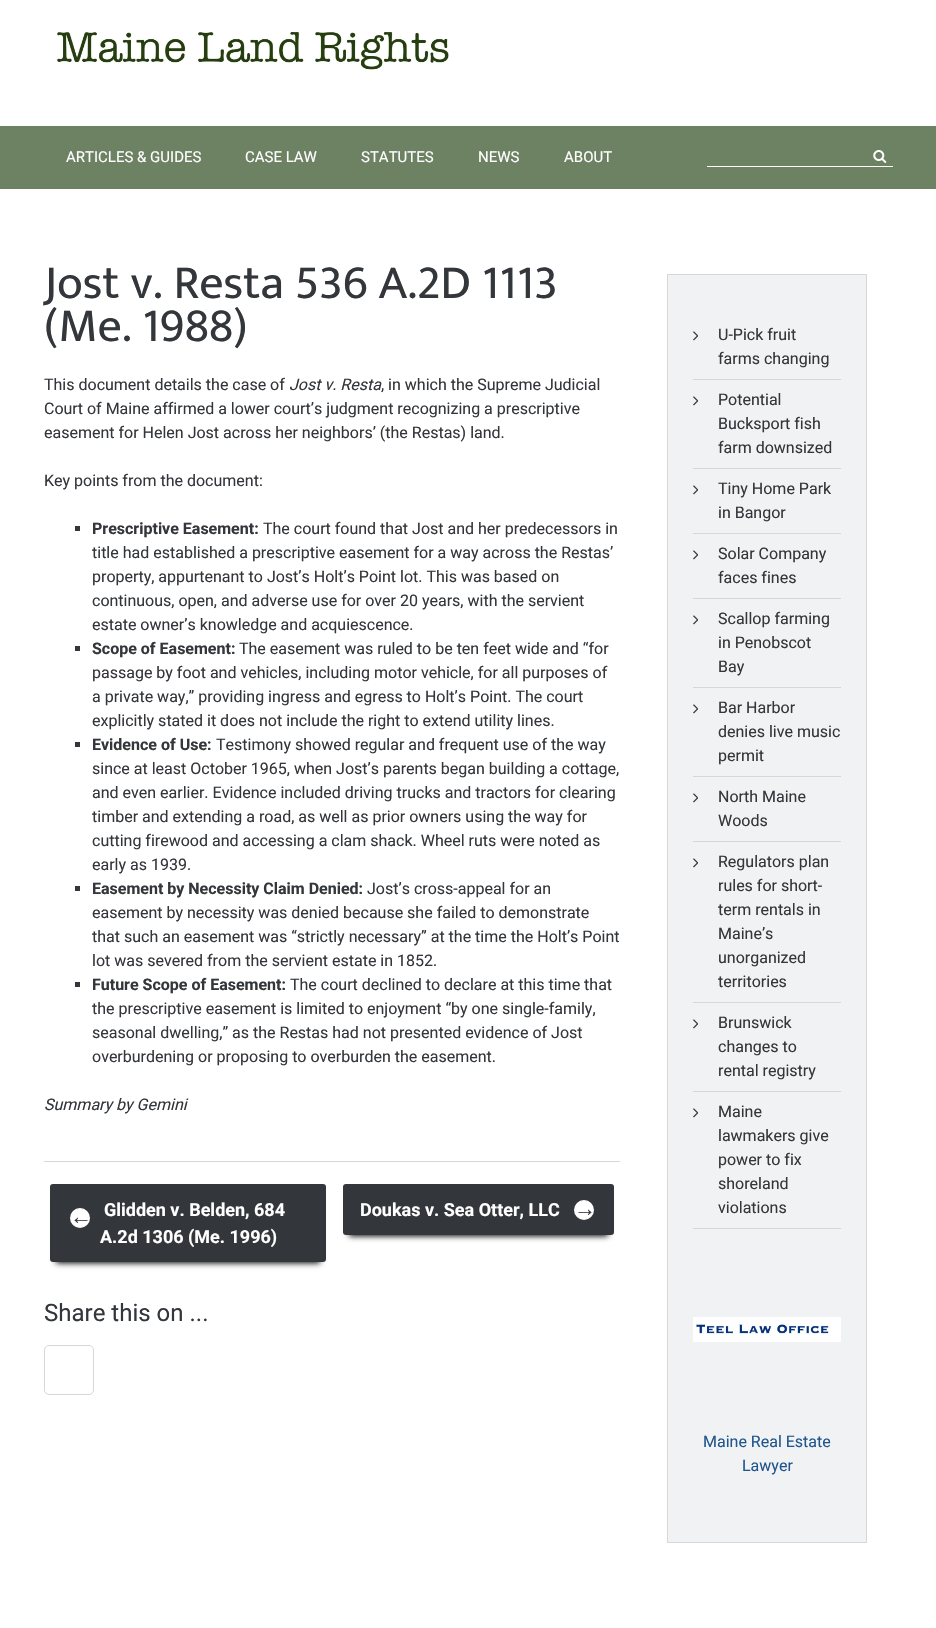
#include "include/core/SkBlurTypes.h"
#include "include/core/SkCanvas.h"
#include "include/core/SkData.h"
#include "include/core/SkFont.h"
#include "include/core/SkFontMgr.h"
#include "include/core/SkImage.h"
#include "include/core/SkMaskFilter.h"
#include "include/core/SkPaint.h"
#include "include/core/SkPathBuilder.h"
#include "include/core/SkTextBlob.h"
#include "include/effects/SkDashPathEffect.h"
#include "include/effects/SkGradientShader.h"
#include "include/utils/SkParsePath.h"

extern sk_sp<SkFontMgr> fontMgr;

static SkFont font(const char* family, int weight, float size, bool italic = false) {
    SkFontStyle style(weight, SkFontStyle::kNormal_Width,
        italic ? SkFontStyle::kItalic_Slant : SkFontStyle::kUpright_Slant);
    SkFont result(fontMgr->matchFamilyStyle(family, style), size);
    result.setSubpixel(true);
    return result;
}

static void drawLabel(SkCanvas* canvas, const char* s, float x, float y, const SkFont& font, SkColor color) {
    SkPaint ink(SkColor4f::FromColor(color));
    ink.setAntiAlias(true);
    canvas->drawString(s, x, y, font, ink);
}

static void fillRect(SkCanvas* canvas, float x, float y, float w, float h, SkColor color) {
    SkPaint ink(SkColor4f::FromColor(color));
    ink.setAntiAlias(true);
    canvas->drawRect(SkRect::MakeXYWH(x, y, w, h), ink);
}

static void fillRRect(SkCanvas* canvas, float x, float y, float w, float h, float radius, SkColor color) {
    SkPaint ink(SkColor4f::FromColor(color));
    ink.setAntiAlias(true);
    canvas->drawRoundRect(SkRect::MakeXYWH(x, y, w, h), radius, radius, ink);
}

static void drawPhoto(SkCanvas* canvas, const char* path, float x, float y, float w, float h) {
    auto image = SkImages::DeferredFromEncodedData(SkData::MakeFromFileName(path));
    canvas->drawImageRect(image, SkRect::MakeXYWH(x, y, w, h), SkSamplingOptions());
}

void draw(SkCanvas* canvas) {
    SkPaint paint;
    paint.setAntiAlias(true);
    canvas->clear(0xFFFFFFFF);
    drawPhoto(canvas, "assets/img1.png", 56, 31, 393, 39);
    fillRect(canvas, 0, 126, 936, 63, 0xFF6D8163);
    SkFont font1 = font("Roboto", 400, 15);
    drawLabel(canvas, "ARTICLES & GUIDES", 66, 162, font1, 0xFFFFFFFF);
    drawLabel(canvas, "CASE LAW", 245, 162, font1, 0xFFFFFFFF);
    drawLabel(canvas, "STATUTES", 361, 162, font1, 0xFFFFFFFF);
    drawLabel(canvas, "NEWS", 478, 162, font1, 0xFFFFFFFF);
    drawLabel(canvas, "ABOUT", 564, 162, font1, 0xFFFFFFFF);
    drawPhoto(canvas, "assets/img2.png", 873, 150, 14, 13);
    fillRect(canvas, 707, 166, 186, 1, 0xFFFFFFFF);
    fillRect(canvas, 44, 1161, 576, 1, 0xFFD7D7D7);
    SkFont font2 = font("Mukta", 400, 48);
    drawLabel(canvas, "Jost v. Resta 536 A.2D 1113", 44, 298, font2, 0xFF33363A);
    drawLabel(canvas, "(Me. 1988)", 44, 341, font2, 0xFF33363A);
    SkFont font3 = font("Roboto", 400, 16);
    drawLabel(canvas, "This document details the case of", 44, 390, font3, 0xFF33363A);
    SkFont font4 = font("Roboto", 400, 16, true);
    drawLabel(canvas, "Jost v. Resta", 289, 390, font4, 0xFF33363A);
    drawLabel(canvas, ", in which the Supreme Judicial", 381, 390, font3, 0xFF33363A);
    drawLabel(canvas, "Court of Maine affirmed a lower court’s judgment recognizing a prescriptive", 44, 414, font3, 0xFF33363A);
    drawLabel(canvas, "easement for Helen Jost across her neighbors’ (the Restas) land.", 44, 438, font3, 0xFF33363A);
    drawLabel(canvas, "Key points from the document:", 44, 486, font3, 0xFF33363A);
    fillRect(canvas, 75, 526, 5, 5, 0xFF33363A);
    SkFont font5 = font("Roboto", 700, 16);
    drawLabel(canvas, "Prescriptive Easement:", 92, 534, font5, 0xFF33363A);
    drawLabel(canvas, "The court found that Jost and her predecessors in", 263, 534, font3, 0xFF33363A);
    drawLabel(canvas, "title had established a prescriptive easement for a way across the Restas’", 92, 558, font3, 0xFF33363A);
    drawLabel(canvas, "property, appurtenant to Jost’s Holt’s Point lot. This was based on", 92, 582, font3, 0xFF33363A);
    drawLabel(canvas, "continuous, open, and adverse use for over 20 years, with the servient", 92, 606, font3, 0xFF33363A);
    drawLabel(canvas, "estate owner’s knowledge and acquiescence.", 92, 630, font3, 0xFF33363A);
    fillRect(canvas, 75, 646, 5, 5, 0xFF33363A);
    drawLabel(canvas, "Scope of Easement:", 92, 654, font5, 0xFF33363A);
    drawLabel(canvas, "The easement was ruled to be ten feet wide and “for", 239, 654, font3, 0xFF33363A);
    drawLabel(canvas, "passage by foot and vehicles, including motor vehicle, for all purposes of", 92, 678, font3, 0xFF33363A);
    drawLabel(canvas, "a private way,” providing ingress and egress to Holt’s Point. The court", 92, 702, font3, 0xFF33363A);
    drawLabel(canvas, "explicitly stated it does not include the right to extend utility lines.", 92, 726, font3, 0xFF33363A);
    fillRect(canvas, 75, 742, 5, 5, 0xFF33363A);
    drawLabel(canvas, "Evidence of Use:", 92, 750, font5, 0xFF33363A);
    drawLabel(canvas, "Testimony showed regular and frequent use of the way", 216, 750, font3, 0xFF33363A);
    drawLabel(canvas, "since at least October 1965, when Jost’s parents began building a cottage,", 92, 774, font3, 0xFF33363A);
    drawLabel(canvas, "and even earlier. Evidence included driving trucks and tractors for clearing", 92, 798, font3, 0xFF33363A);
    drawLabel(canvas, "timber and extending a road, as well as prior owners using the way for", 92, 822, font3, 0xFF33363A);
    drawLabel(canvas, "cutting firewood and accessing a clam shack. Wheel ruts were noted as", 92, 846, font3, 0xFF33363A);
    drawLabel(canvas, "early as 1939.", 92, 870, font3, 0xFF33363A);
    fillRect(canvas, 75, 886, 5, 5, 0xFF33363A);
    drawLabel(canvas, "Easement by Necessity Claim Denied:", 92, 894, font5, 0xFF33363A);
    drawLabel(canvas, "Jost’s cross-appeal for an", 367, 894, font3, 0xFF33363A);
    drawLabel(canvas, "easement by necessity was denied because she failed to demonstrate", 92, 918, font3, 0xFF33363A);
    drawLabel(canvas, "that such an easement was “strictly necessary” at the time the Holt’s Point", 92, 942, font3, 0xFF33363A);
    drawLabel(canvas, "lot was severed from the servient estate in 1852.", 92, 966, font3, 0xFF33363A);
    fillRect(canvas, 75, 982, 5, 5, 0xFF33363A);
    drawLabel(canvas, "Future Scope of Easement:", 92, 990, font5, 0xFF33363A);
    drawLabel(canvas, "The court declined to declare at this time that", 290, 990, font3, 0xFF33363A);
    drawLabel(canvas, "the prescriptive easement is limited to enjoyment “by one single-family,", 92, 1014, font3, 0xFF33363A);
    drawLabel(canvas, "seasonal dwelling,” as the Restas had not presented evidence of Jost", 92, 1038, font3, 0xFF33363A);
    drawLabel(canvas, "overburdening or proposing to overburden the easement.", 92, 1062, font3, 0xFF33363A);
    drawLabel(canvas, "Summary by Gemini", 44, 1110, font4, 0xFF33363A);
    paint.setColor(0xFF000000);
    paint.setMaskFilter(SkMaskFilter::MakeBlur(kNormal_SkBlurStyle, 3));
    canvas->drawRect(SkRect::MakeXYWH(56, 1197, 264, 66), paint);
    paint.setMaskFilter(nullptr);
    fillRRect(canvas, 50, 1184, 276, 78, 3, 0xFF33363A);
    paint.setColor(0xFFFFFFFF);
    canvas->drawCircle(80, 1218, 10, paint);
    SkFont font6 = font("Liberation Sans", 700, 22);
    drawLabel(canvas, "←", 70, 1224, font6, 0xFF33363A);
    SkFont font7 = font("Roboto", 700, 18);
    drawLabel(canvas, "Glidden v. Belden, 684", 104, 1216, font7, 0xFFFFFFFF);
    drawLabel(canvas, "A.2d 1306 (Me. 1996)", 100, 1243, font7, 0xFFFFFFFF);
    paint.setColor(0xFF000000);
    paint.setMaskFilter(SkMaskFilter::MakeBlur(kNormal_SkBlurStyle, 3));
    canvas->drawRect(SkRect::MakeXYWH(349, 1197, 259, 39), paint);
    paint.setMaskFilter(nullptr);
    fillRRect(canvas, 343, 1184, 271, 51, 3, 0xFF33363A);
    drawLabel(canvas, "Doukas v. Sea Otter, LLC", 360, 1216, font7, 0xFFFFFFFF);
    paint.setColor(0xFFFFFFFF);
    canvas->drawCircle(584, 1210, 10, paint);
    drawLabel(canvas, "→", 574, 1216, font6, 0xFF33363A);
    SkFont font8 = font("Roboto", 400, 24);
    drawLabel(canvas, "Share this on ...", 44, 1321, font8, 0xFF33363A);
    paint.setStroke(true);
    paint.setStrokeWidth(1);
    paint.setColor(0xFFD7D7D7);
    canvas->drawRoundRect(SkRect::MakeXYWH(44.5f, 1345.5f, 49, 49), 4.5f, 4.5f, paint);
    paint.setStroke(false);
    paint.setColor(0xFFF0F2F3);
    canvas->drawRect(SkRect::MakeXYWH(667.5f, 274.5f, 199, 1268), paint);
    paint.setStroke(true);
    paint.setColor(0xFFD7D7D7);
    canvas->drawRect(SkRect::MakeXYWH(667.5f, 274.5f, 199, 1268), paint);
    drawPhoto(canvas, "assets/img3.png", 693, 331, 5, 10);
    fillRect(canvas, 693, 379, 148, 1, 0xFFD7D7D7);
    drawLabel(canvas, "U-Pick fruit", 718, 340, font3, 0xFF33363A);
    drawLabel(canvas, "farms changing", 718, 364, font3, 0xFF33363A);
    drawPhoto(canvas, "assets/img3.png", 693, 396, 5, 10);
    fillRect(canvas, 693, 468, 148, 1, 0xFFD7D7D7);
    drawLabel(canvas, "Potential", 718, 405, font3, 0xFF33363A);
    drawLabel(canvas, "Bucksport fish", 718, 429, font3, 0xFF33363A);
    drawLabel(canvas, "farm downsized", 718, 453, font3, 0xFF33363A);
    drawPhoto(canvas, "assets/img3.png", 693, 485, 5, 10);
    fillRect(canvas, 693, 533, 148, 1, 0xFFD7D7D7);
    drawLabel(canvas, "Tiny Home Park", 718, 494, font3, 0xFF33363A);
    drawLabel(canvas, "in Bangor", 718, 518, font3, 0xFF33363A);
    drawPhoto(canvas, "assets/img3.png", 693, 550, 5, 10);
    fillRect(canvas, 693, 598, 148, 1, 0xFFD7D7D7);
    drawLabel(canvas, "Solar Company", 718, 559, font3, 0xFF33363A);
    drawLabel(canvas, "faces fines", 718, 583, font3, 0xFF33363A);
    drawPhoto(canvas, "assets/img3.png", 693, 615, 5, 10);
    fillRect(canvas, 693, 687, 148, 1, 0xFFD7D7D7);
    drawLabel(canvas, "Scallop farming", 718, 624, font3, 0xFF33363A);
    drawLabel(canvas, "in Penobscot", 718, 648, font3, 0xFF33363A);
    drawLabel(canvas, "Bay", 718, 672, font3, 0xFF33363A);
    drawPhoto(canvas, "assets/img3.png", 693, 704, 5, 10);
    fillRect(canvas, 693, 776, 148, 1, 0xFFD7D7D7);
    drawLabel(canvas, "Bar Harbor", 718, 713, font3, 0xFF33363A);
    drawLabel(canvas, "denies live music", 718, 737, font3, 0xFF33363A);
    drawLabel(canvas, "permit", 718, 761, font3, 0xFF33363A);
    drawPhoto(canvas, "assets/img3.png", 693, 793, 5, 10);
    fillRect(canvas, 693, 841, 148, 1, 0xFFD7D7D7);
    drawLabel(canvas, "North Maine", 718, 802, font3, 0xFF33363A);
    drawLabel(canvas, "Woods", 718, 826, font3, 0xFF33363A);
    drawPhoto(canvas, "assets/img3.png", 693, 858, 5, 10);
    fillRect(canvas, 693, 1002, 148, 1, 0xFFD7D7D7);
    drawLabel(canvas, "Regulators plan", 718, 867, font3, 0xFF33363A);
    drawLabel(canvas, "rules for short-", 718, 891, font3, 0xFF33363A);
    drawLabel(canvas, "term rentals in", 718, 915, font3, 0xFF33363A);
    drawLabel(canvas, "Maine’s", 718, 939, font3, 0xFF33363A);
    drawLabel(canvas, "unorganized", 718, 963, font3, 0xFF33363A);
    drawLabel(canvas, "territories", 718, 987, font3, 0xFF33363A);
    drawPhoto(canvas, "assets/img3.png", 693, 1019, 5, 10);
    fillRect(canvas, 693, 1091, 148, 1, 0xFFD7D7D7);
    drawLabel(canvas, "Brunswick", 718, 1028, font3, 0xFF33363A);
    drawLabel(canvas, "changes to", 718, 1052, font3, 0xFF33363A);
    drawLabel(canvas, "rental registry", 718, 1076, font3, 0xFF33363A);
    drawPhoto(canvas, "assets/img3.png", 693, 1108, 5, 10);
    fillRect(canvas, 693, 1228, 148, 1, 0xFFD7D7D7);
    drawLabel(canvas, "Maine", 718, 1117, font3, 0xFF33363A);
    drawLabel(canvas, "lawmakers give", 718, 1141, font3, 0xFF33363A);
    drawLabel(canvas, "power to fix", 718, 1165, font3, 0xFF33363A);
    drawLabel(canvas, "shoreland", 718, 1189, font3, 0xFF33363A);
    drawLabel(canvas, "violations", 718, 1213, font3, 0xFF33363A);
    drawPhoto(canvas, "assets/img4.png", 693, 1317, 148, 25);
    drawLabel(canvas, "Maine Real Estate", 703, 1447, font3, 0xFF20568D);
    drawLabel(canvas, "Lawyer", 742, 1471, font3, 0xFF20568D);
}
